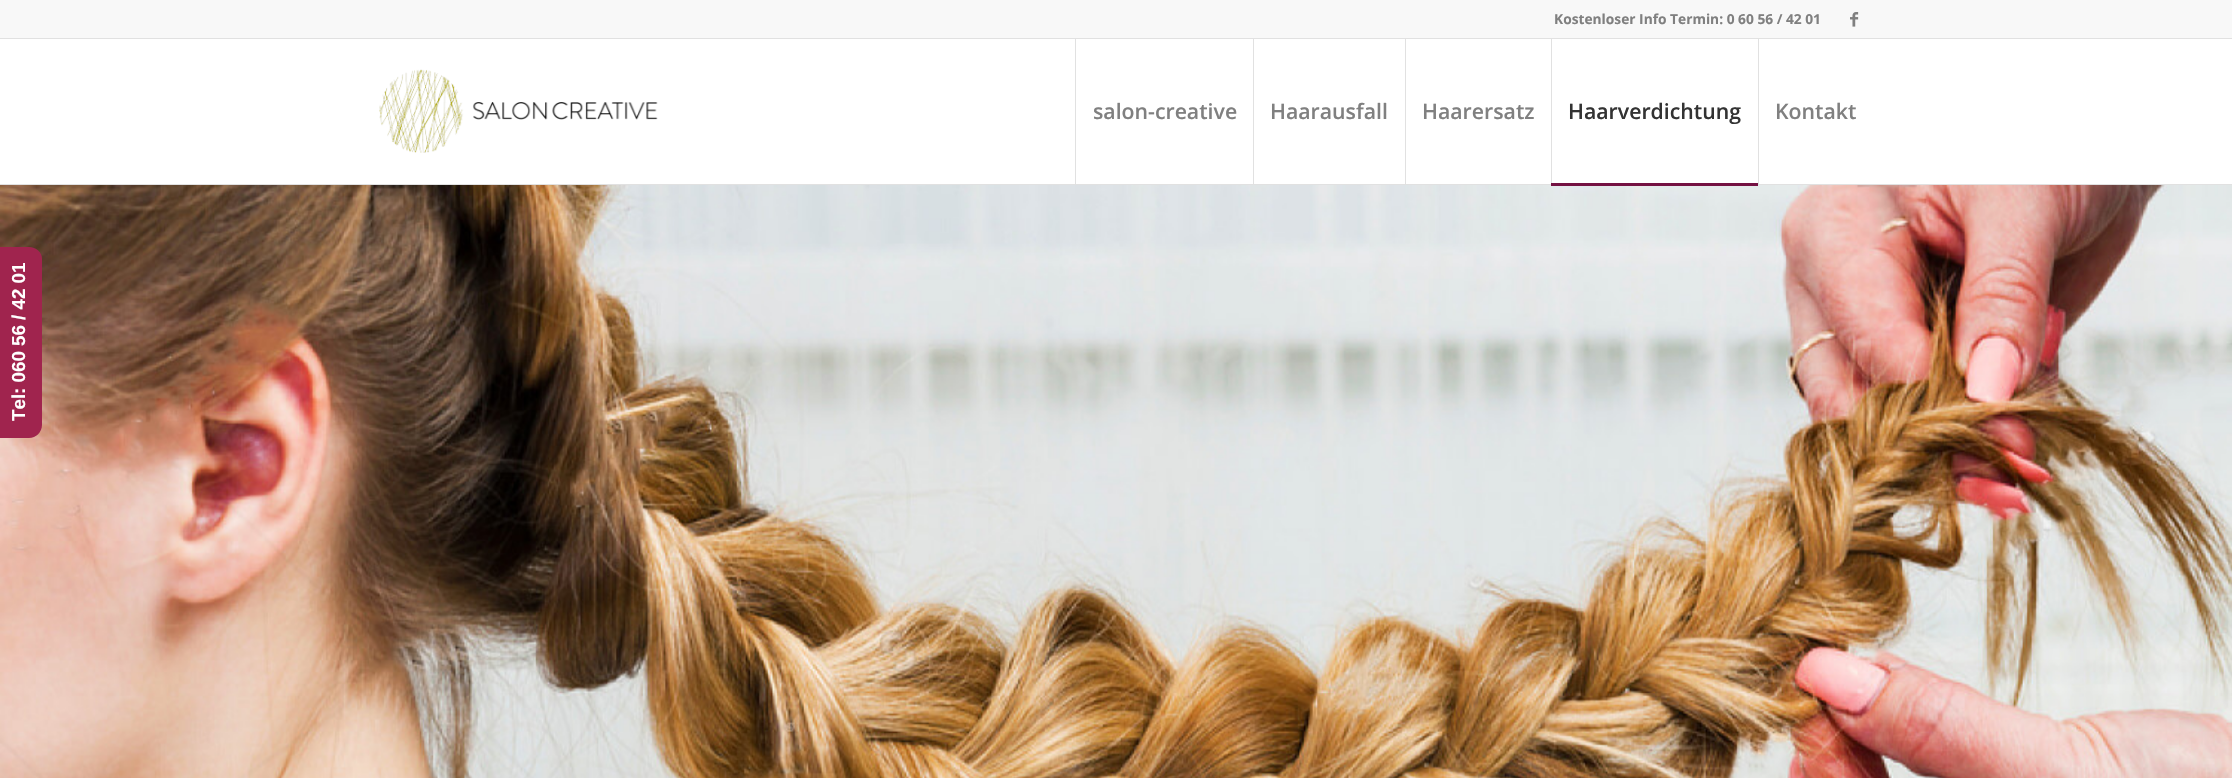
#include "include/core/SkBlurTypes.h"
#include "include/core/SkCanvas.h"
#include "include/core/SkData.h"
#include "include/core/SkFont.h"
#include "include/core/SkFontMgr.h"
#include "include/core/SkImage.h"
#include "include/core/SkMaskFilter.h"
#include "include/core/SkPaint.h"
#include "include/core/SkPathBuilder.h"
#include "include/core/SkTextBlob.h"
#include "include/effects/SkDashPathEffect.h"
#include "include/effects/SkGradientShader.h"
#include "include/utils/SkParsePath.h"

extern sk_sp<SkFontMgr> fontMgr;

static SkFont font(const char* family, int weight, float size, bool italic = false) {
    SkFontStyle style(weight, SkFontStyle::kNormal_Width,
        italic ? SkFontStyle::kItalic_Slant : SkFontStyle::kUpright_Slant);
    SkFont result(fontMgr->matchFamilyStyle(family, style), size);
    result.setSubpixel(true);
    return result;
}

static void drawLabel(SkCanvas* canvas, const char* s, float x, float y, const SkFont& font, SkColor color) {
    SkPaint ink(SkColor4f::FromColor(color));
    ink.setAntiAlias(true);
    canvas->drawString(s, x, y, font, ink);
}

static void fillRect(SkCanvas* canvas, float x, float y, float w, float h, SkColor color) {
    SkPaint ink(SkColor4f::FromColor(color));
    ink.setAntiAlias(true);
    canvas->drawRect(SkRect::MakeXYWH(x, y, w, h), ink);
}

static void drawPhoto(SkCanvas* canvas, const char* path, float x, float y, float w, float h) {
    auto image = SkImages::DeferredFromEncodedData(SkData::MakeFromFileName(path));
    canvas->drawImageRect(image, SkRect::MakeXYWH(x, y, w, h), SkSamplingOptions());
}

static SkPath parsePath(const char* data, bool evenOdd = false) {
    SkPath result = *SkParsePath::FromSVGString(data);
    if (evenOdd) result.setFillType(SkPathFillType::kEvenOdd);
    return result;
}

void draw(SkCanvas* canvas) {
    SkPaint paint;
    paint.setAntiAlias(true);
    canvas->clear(0xFFFFFFFF);
    fillRect(canvas, 0, 0, 2232, 38, 0xFFF8F8F8);
    fillRect(canvas, 0, 38, 2232, 1, 0xFFE1E1E1);
    SkFont font1 = font("Open Sans", 700, 13.75f);
    drawLabel(canvas, "Kostenloser Info Termin: 0 60 56 / 42 01", 1554, 24, font1, 0xFF808080);
    drawPhoto(canvas, "assets/img1.png", 1850, 12, 9, 15);
    fillRect(canvas, 0, 184, 2232, 1, 0xFFE1E1E1);
    drawPhoto(canvas, "assets/img2.png", 379, 69, 279, 84);
    fillRect(canvas, 1075, 39, 1, 145, 0xFFE1E1E1);
    SkFont font2 = font("Open Sans", 600, 21.25f);
    drawLabel(canvas, "salon-creative", 1093, 119, font2, 0xFF808080);
    fillRect(canvas, 1253, 39, 1, 145, 0xFFE1E1E1);
    drawLabel(canvas, "Haarausfall", 1270, 119, font2, 0xFF808080);
    fillRect(canvas, 1405, 39, 1, 145, 0xFFE1E1E1);
    drawLabel(canvas, "Haarersatz", 1422, 119, font2, 0xFF808080);
    fillRect(canvas, 1551, 39, 1, 145, 0xFFE1E1E1);
    drawLabel(canvas, "Haarverdichtung", 1568, 119, font2, 0xFF333333);
    drawPhoto(canvas, "assets/img3.png", 0, 185, 2232, 593);
    fillRect(canvas, 1551, 183, 207, 3, 0xFF741142);
    fillRect(canvas, 1758, 39, 1, 145, 0xFFE1E1E1);
    drawLabel(canvas, "Kontakt", 1775, 119, font2, 0xFF808080);
    paint.setColor(0xFFA0244E);
    canvas->drawPath(parsePath("M-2 438V247H29C36 247 42 252 42 259V425C42 432 36 438 29 438Z"), paint);
    SkFont font3 = font("Liberation Sans", 700, 18.75f);
    canvas->save();
    canvas->rotate(-90, 25, 421);
    drawLabel(canvas, "Tel: 060 56 / 42 01", 25, 421, font3, 0xFFFFFFFF);
    canvas->restore();
}
